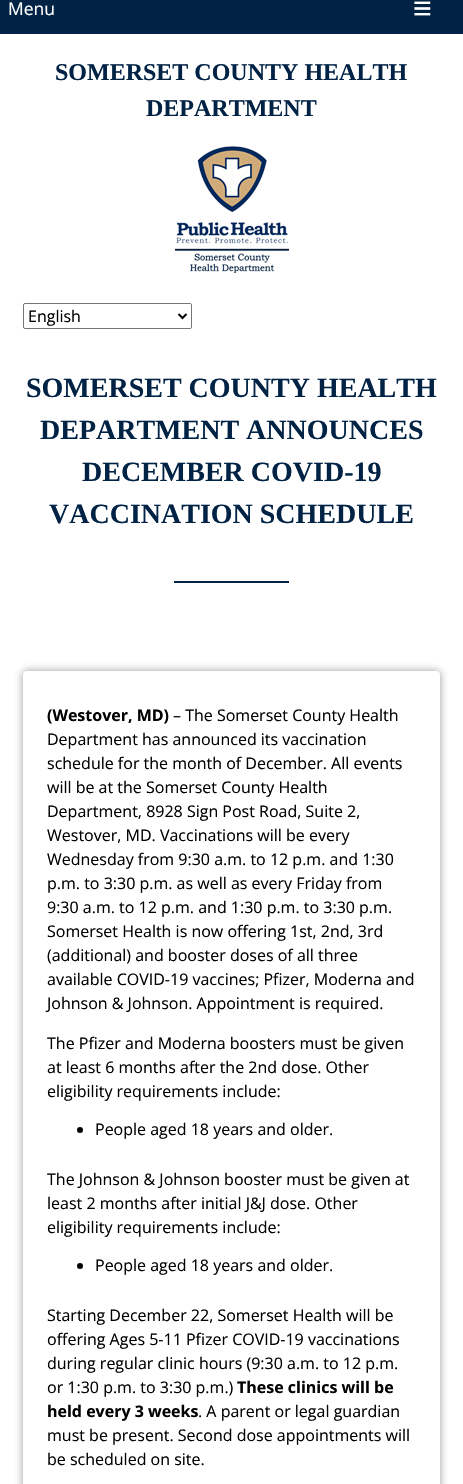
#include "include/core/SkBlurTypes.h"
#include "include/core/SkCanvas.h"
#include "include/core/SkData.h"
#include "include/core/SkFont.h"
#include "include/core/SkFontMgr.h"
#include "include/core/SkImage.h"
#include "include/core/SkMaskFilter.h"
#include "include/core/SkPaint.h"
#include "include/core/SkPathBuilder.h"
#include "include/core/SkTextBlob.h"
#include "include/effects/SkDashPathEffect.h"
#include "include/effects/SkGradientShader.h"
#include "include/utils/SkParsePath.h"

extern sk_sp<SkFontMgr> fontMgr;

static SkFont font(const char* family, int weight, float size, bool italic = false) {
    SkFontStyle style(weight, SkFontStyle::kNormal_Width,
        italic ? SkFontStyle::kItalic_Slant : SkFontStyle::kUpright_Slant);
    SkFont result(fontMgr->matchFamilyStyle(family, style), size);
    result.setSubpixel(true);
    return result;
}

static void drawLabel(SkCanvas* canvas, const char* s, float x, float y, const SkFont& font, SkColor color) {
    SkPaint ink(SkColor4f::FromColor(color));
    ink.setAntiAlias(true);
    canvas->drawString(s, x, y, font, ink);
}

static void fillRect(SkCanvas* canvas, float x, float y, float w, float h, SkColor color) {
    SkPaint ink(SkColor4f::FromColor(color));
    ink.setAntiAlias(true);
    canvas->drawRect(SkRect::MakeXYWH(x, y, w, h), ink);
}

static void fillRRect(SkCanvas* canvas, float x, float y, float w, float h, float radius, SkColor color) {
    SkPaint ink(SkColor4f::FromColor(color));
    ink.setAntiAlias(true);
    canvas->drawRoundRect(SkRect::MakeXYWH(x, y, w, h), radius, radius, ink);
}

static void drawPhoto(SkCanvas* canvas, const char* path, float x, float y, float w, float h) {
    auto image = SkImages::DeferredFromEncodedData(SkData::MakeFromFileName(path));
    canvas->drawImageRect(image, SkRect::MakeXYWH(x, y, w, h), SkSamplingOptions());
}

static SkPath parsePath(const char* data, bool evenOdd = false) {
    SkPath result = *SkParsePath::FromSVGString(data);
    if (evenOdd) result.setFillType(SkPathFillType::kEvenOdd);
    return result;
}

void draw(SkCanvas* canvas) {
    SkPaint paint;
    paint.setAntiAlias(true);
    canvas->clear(0xFFFFFFFF);
    fillRect(canvas, 0, 0, 463, 34, 0xFF002244);
    SkFont font1 = font("Open Sans", 400, 17.5f);
    drawLabel(canvas, "Menu", 8, 15, font1, 0xFFFFFFFF);
    SkFont font2 = font("Liberation Sans", 400, 32);
    drawLabel(canvas, "≡", 413, 19, font2, 0xFFFFFFFF);
    SkFont font3 = font("Liberation Serif", 700, 24);
    drawLabel(canvas, "SOMERSET COUNTY HEALTH", 55, 80, font3, 0xFF002244);
    drawLabel(canvas, "DEPARTMENT", 146, 116, font3, 0xFF002244);
    drawPhoto(canvas, "assets/img1.png", 175, 146, 114, 127);
    paint.setStroke(true);
    paint.setStrokeWidth(1);
    paint.setColor(0xFF767676);
    canvas->drawRoundRect(SkRect::MakeXYWH(23.5f, 303.5f, 168, 25), 1.5f, 1.5f, paint);
    paint.setStrokeWidth(2);
    paint.setColor(0xFF010101);
    canvas->drawPath(parsePath("M178.5 314L182.5 318L186.5 314"), paint);
    SkFont font4 = font("Open Sans", 400, 16);
    drawLabel(canvas, "English", 28, 322, font4, 0xFF010101);
    SkFont font5 = font("Liberation Serif", 700, 28);
    drawLabel(canvas, "SOMERSET COUNTY HEALTH", 26, 397, font5, 0xFF002244);
    drawLabel(canvas, "DEPARTMENT ANNOUNCES", 40, 439, font5, 0xFF002244);
    drawLabel(canvas, "DECEMBER COVID-19", 82, 481, font5, 0xFF002244);
    drawLabel(canvas, "VACCINATION SCHEDULE", 49, 523, font5, 0xFF002244);
    fillRect(canvas, 174, 581, 115, 2, 0xFF002244);
    paint.setStroke(false);
    paint.setColor(0x80323232);
    paint.setMaskFilter(SkMaskFilter::MakeBlur(kNormal_SkBlurStyle, 4.5f));
    canvas->drawRoundRect(SkRect::MakeXYWH(23, 671, 417, 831), 4, 4, paint);
    paint.setMaskFilter(nullptr);
    fillRRect(canvas, 23, 671, 417, 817, 4, 0xFFFFFFFF);
    SkFont font6 = font("Open Sans", 700, 16);
    drawLabel(canvas, "(Westover, MD)", 47, 721, font6, 0xFF010101);
    drawLabel(canvas, "– The Somerset County Health", 173, 721, font4, 0xFF010101);
    drawLabel(canvas, "Department has announced its vaccination", 47, 745, font4, 0xFF010101);
    drawLabel(canvas, "schedule for the month of December. All events", 47, 769, font4, 0xFF010101);
    drawLabel(canvas, "will be at the Somerset County Health", 47, 793, font4, 0xFF010101);
    drawLabel(canvas, "Department, 8928 Sign Post Road, Suite 2,", 47, 817, font4, 0xFF010101);
    drawLabel(canvas, "Westover, MD. Vaccinations will be every", 47, 841, font4, 0xFF010101);
    drawLabel(canvas, "Wednesday from 9:30 a.m. to 12 p.m. and 1:30", 47, 865, font4, 0xFF010101);
    drawLabel(canvas, "p.m. to 3:30 p.m. as well as every Friday from", 47, 889, font4, 0xFF010101);
    drawLabel(canvas, "9:30 a.m. to 12 p.m. and 1:30 p.m. to 3:30 p.m.", 47, 913, font4, 0xFF010101);
    drawLabel(canvas, "Somerset Health is now offering 1st, 2nd, 3rd", 47, 937, font4, 0xFF010101);
    drawLabel(canvas, "(additional) and booster doses of all three", 47, 961, font4, 0xFF010101);
    drawLabel(canvas, "available COVID-19 vaccines; Pfizer, Moderna and", 47, 985, font4, 0xFF010101);
    drawLabel(canvas, "Johnson & Johnson. Appointment is required.", 47, 1009, font4, 0xFF010101);
    drawLabel(canvas, "The Pfizer and Moderna boosters must be given", 47, 1049, font4, 0xFF010101);
    drawLabel(canvas, "at least 6 months after the 2nd dose. Other", 47, 1073, font4, 0xFF010101);
    drawLabel(canvas, "eligibility requirements include:", 47, 1097, font4, 0xFF010101);
    paint.setColor(0xFF010101);
    canvas->drawCircle(80, 1130, 3, paint);
    drawLabel(canvas, "People aged 18 years and older.", 95, 1135, font4, 0xFF010101);
    drawLabel(canvas, "The Johnson & Johnson booster must be given at", 47, 1185, font4, 0xFF010101);
    drawLabel(canvas, "least 2 months after initial J&J dose. Other", 47, 1209, font4, 0xFF010101);
    drawLabel(canvas, "eligibility requirements include:", 47, 1233, font4, 0xFF010101);
    canvas->drawCircle(80, 1266, 3, paint);
    drawLabel(canvas, "People aged 18 years and older.", 95, 1271, font4, 0xFF010101);
    drawLabel(canvas, "Starting December 22, Somerset Health will be", 47, 1321, font4, 0xFF010101);
    drawLabel(canvas, "offering Ages 5-11 Pfizer COVID-19 vaccinations", 47, 1345, font4, 0xFF010101);
    drawLabel(canvas, "during regular clinic hours (9:30 a.m. to 12 p.m.", 47, 1369, font4, 0xFF010101);
    drawLabel(canvas, "or 1:30 p.m. to 3:30 p.m.)", 47, 1393, font4, 0xFF010101);
    drawLabel(canvas, "These clinics will be", 237, 1393, font6, 0xFF010101);
    drawLabel(canvas, "held every 3 weeks", 47, 1417, font6, 0xFF010101);
    drawLabel(canvas, ". A parent or legal guardian", 198, 1417, font4, 0xFF010101);
    drawLabel(canvas, "must be present. Second dose appointments will", 47, 1441, font4, 0xFF010101);
    drawLabel(canvas, "be scheduled on site.", 47, 1465, font4, 0xFF010101);
}
